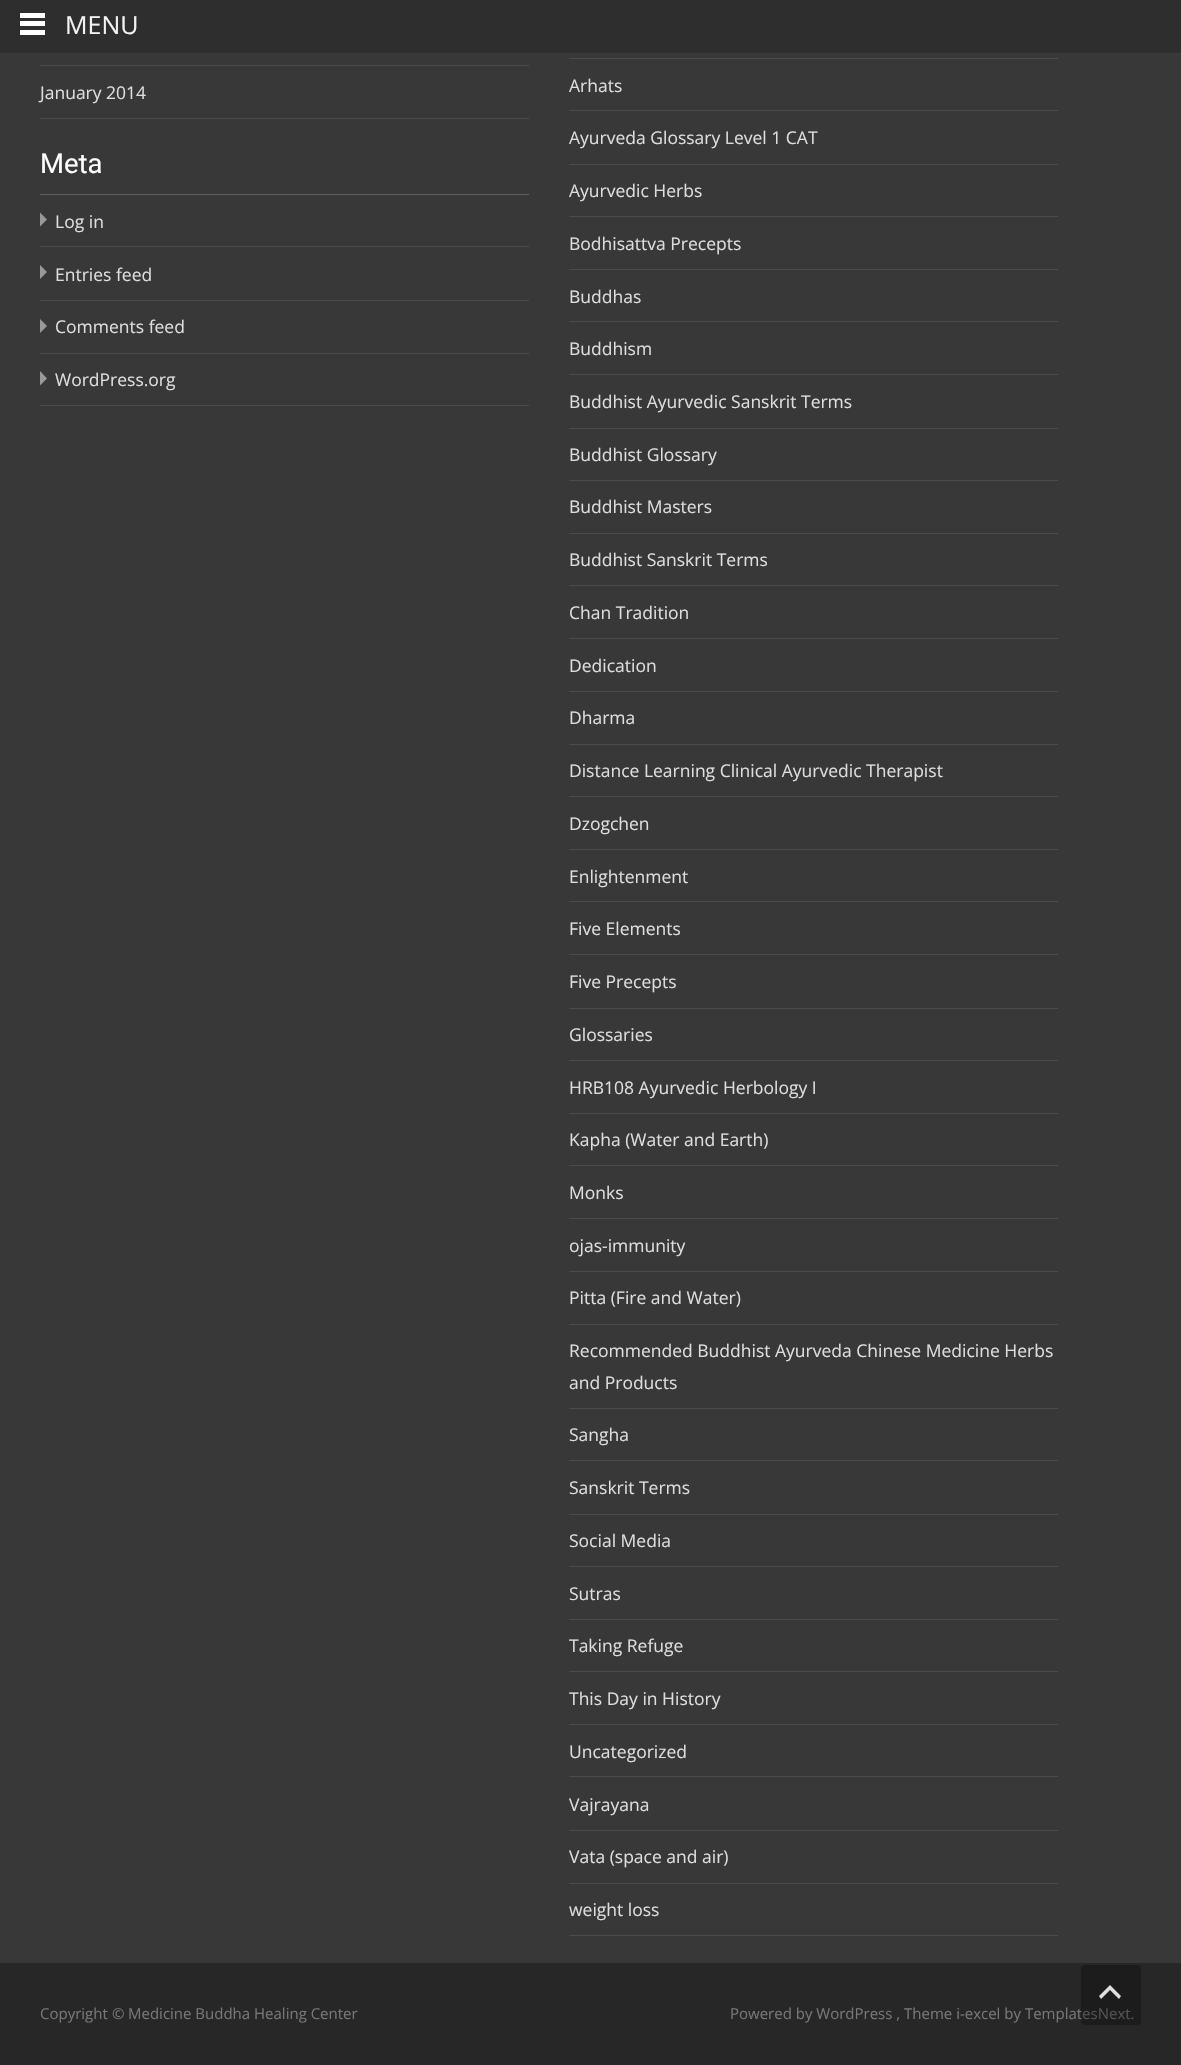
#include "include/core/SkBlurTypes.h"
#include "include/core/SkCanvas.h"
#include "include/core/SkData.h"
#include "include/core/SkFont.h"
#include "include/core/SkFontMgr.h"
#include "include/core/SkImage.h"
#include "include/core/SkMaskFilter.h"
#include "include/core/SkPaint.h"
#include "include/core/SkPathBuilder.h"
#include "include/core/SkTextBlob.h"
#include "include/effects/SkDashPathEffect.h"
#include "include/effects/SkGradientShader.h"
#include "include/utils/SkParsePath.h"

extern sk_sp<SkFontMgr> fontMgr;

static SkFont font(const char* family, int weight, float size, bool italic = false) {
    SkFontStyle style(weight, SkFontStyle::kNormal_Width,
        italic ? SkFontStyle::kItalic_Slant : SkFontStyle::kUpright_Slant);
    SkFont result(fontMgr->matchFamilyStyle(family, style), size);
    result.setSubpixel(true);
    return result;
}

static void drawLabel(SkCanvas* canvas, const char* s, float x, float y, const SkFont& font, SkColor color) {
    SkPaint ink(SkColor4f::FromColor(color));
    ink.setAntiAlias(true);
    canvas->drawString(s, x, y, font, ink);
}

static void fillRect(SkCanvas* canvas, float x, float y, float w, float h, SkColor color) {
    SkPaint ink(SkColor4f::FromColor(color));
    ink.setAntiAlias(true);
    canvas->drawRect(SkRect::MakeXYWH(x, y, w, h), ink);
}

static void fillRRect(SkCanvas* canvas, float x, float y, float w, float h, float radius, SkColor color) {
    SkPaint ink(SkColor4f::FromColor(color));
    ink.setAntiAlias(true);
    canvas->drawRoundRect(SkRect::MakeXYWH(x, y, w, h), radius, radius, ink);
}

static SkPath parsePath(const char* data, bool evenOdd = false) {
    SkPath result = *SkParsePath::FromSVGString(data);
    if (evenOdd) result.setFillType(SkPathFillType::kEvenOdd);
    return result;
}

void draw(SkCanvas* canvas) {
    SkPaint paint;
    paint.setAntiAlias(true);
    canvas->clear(0xFF272727);
    fillRect(canvas, 0, 0, 1181, 53, 0xFF2E2E2E);
    fillRect(canvas, 20, 13, 25, 5, 0xFFFFFFFF);
    fillRect(canvas, 20, 21, 25, 5, 0xFFFFFFFF);
    fillRect(canvas, 20, 30, 25, 5, 0xFFFFFFFF);
    SkFont font1 = font("Open Sans", 400, 25);
    drawLabel(canvas, "MENU", 65, 34, font1, 0xFFF2F2F2);
    fillRect(canvas, 0, 53, 1181, 1910, 0xFF383838);
    fillRect(canvas, 40, 65, 489, 1, 0xFF4C4C4C);
    fillRect(canvas, 40, 118, 489, 1, 0xFF4C4C4C);
    SkFont font2 = font("Open Sans", 400, 17.5f);
    drawLabel(canvas, "January 2014", 40, 99, font2, 0xFFDDDDDD);
    fillRect(canvas, 569, 58, 489, 1, 0xFF4C4C4C);
    fillRect(canvas, 569, 110, 489, 1, 0xFF4C4C4C);
    drawLabel(canvas, "Arhats", 569, 92, font2, 0xFFDDDDDD);
    fillRect(canvas, 569, 164, 489, 1, 0xFF4C4C4C);
    drawLabel(canvas, "Ayurveda Glossary Level 1 CAT", 569, 144, font2, 0xFFDDDDDD);
    fillRect(canvas, 569, 216, 489, 1, 0xFF4C4C4C);
    drawLabel(canvas, "Ayurvedic Herbs", 569, 197, font2, 0xFFDDDDDD);
    fillRect(canvas, 569, 269, 489, 1, 0xFF4C4C4C);
    drawLabel(canvas, "Bodhisattva Precepts", 569, 250, font2, 0xFFDDDDDD);
    fillRect(canvas, 569, 321, 489, 1, 0xFF4C4C4C);
    drawLabel(canvas, "Buddhas", 569, 303, font2, 0xFFDDDDDD);
    fillRect(canvas, 569, 374, 489, 1, 0xFF4C4C4C);
    drawLabel(canvas, "Buddhism", 569, 355, font2, 0xFFDDDDDD);
    fillRect(canvas, 569, 428, 489, 1, 0xFF4C4C4C);
    drawLabel(canvas, "Buddhist Ayurvedic Sanskrit Terms", 569, 408, font2, 0xFFDDDDDD);
    fillRect(canvas, 569, 480, 489, 1, 0xFF4C4C4C);
    drawLabel(canvas, "Buddhist Glossary", 569, 461, font2, 0xFFDDDDDD);
    fillRect(canvas, 569, 533, 489, 1, 0xFF4C4C4C);
    drawLabel(canvas, "Buddhist Masters", 569, 513, font2, 0xFFDDDDDD);
    fillRect(canvas, 569, 585, 489, 1, 0xFF4C4C4C);
    drawLabel(canvas, "Buddhist Sanskrit Terms", 569, 566, font2, 0xFFDDDDDD);
    fillRect(canvas, 569, 638, 489, 1, 0xFF4C4C4C);
    drawLabel(canvas, "Chan Tradition", 569, 619, font2, 0xFFDDDDDD);
    fillRect(canvas, 569, 691, 489, 1, 0xFF4C4C4C);
    drawLabel(canvas, "Dedication", 569, 672, font2, 0xFFDDDDDD);
    fillRect(canvas, 569, 744, 489, 1, 0xFF4C4C4C);
    drawLabel(canvas, "Dharma", 569, 724, font2, 0xFFDDDDDD);
    fillRect(canvas, 569, 796, 489, 1, 0xFF4C4C4C);
    drawLabel(canvas, "Distance Learning Clinical Ayurvedic Therapist", 569, 777, font2, 0xFFDDDDDD);
    fillRect(canvas, 569, 849, 489, 1, 0xFF4C4C4C);
    drawLabel(canvas, "Dzogchen", 569, 830, font2, 0xFFDDDDDD);
    fillRect(canvas, 569, 901, 489, 1, 0xFF4C4C4C);
    drawLabel(canvas, "Enlightenment", 569, 883, font2, 0xFFDDDDDD);
    fillRect(canvas, 569, 954, 489, 1, 0xFF4C4C4C);
    drawLabel(canvas, "Five Elements", 569, 935, font2, 0xFFDDDDDD);
    fillRect(canvas, 569, 1008, 489, 1, 0xFF4C4C4C);
    drawLabel(canvas, "Five Precepts", 569, 988, font2, 0xFFDDDDDD);
    fillRect(canvas, 569, 1060, 489, 1, 0xFF4C4C4C);
    drawLabel(canvas, "Glossaries", 569, 1041, font2, 0xFFDDDDDD);
    fillRect(canvas, 569, 1113, 489, 1, 0xFF4C4C4C);
    drawLabel(canvas, "HRB108 Ayurvedic Herbology I", 569, 1094, font2, 0xFFDDDDDD);
    fillRect(canvas, 569, 1165, 489, 1, 0xFF4C4C4C);
    drawLabel(canvas, "Kapha (Water and Earth)", 569, 1146, font2, 0xFFDDDDDD);
    fillRect(canvas, 569, 1218, 489, 1, 0xFF4C4C4C);
    drawLabel(canvas, "Monks", 569, 1199, font2, 0xFFDDDDDD);
    fillRect(canvas, 569, 1271, 489, 1, 0xFF4C4C4C);
    drawLabel(canvas, "ojas-immunity", 569, 1252, font2, 0xFFDDDDDD);
    fillRect(canvas, 569, 1324, 489, 1, 0xFF4C4C4C);
    drawLabel(canvas, "Pitta (Fire and Water)", 569, 1304, font2, 0xFFDDDDDD);
    fillRect(canvas, 569, 1408, 489, 1, 0xFF4C4C4C);
    drawLabel(canvas, "Recommended Buddhist Ayurveda Chinese Medicine Herbs", 569, 1357, font2, 0xFFDDDDDD);
    drawLabel(canvas, "and Products", 569, 1389, font2, 0xFFDDDDDD);
    fillRect(canvas, 569, 1460, 489, 1, 0xFF4C4C4C);
    drawLabel(canvas, "Sangha", 569, 1441, font2, 0xFFDDDDDD);
    fillRect(canvas, 569, 1514, 489, 1, 0xFF4C4C4C);
    drawLabel(canvas, "Sanskrit Terms", 569, 1494, font2, 0xFFDDDDDD);
    fillRect(canvas, 569, 1566, 489, 1, 0xFF4C4C4C);
    drawLabel(canvas, "Social Media", 569, 1547, font2, 0xFFDDDDDD);
    fillRect(canvas, 569, 1619, 489, 1, 0xFF4C4C4C);
    drawLabel(canvas, "Sutras", 569, 1600, font2, 0xFFDDDDDD);
    fillRect(canvas, 569, 1671, 489, 1, 0xFF4C4C4C);
    drawLabel(canvas, "Taking Refuge", 569, 1652, font2, 0xFFDDDDDD);
    fillRect(canvas, 569, 1724, 489, 1, 0xFF4C4C4C);
    drawLabel(canvas, "This Day in History", 569, 1705, font2, 0xFFDDDDDD);
    fillRect(canvas, 569, 1776, 489, 1, 0xFF4C4C4C);
    drawLabel(canvas, "Uncategorized", 569, 1758, font2, 0xFFDDDDDD);
    fillRect(canvas, 569, 1830, 489, 1, 0xFF4C4C4C);
    drawLabel(canvas, "Vajrayana", 569, 1811, font2, 0xFFDDDDDD);
    fillRect(canvas, 569, 1883, 489, 1, 0xFF4C4C4C);
    drawLabel(canvas, "Vata (space and air)", 569, 1863, font2, 0xFFDDDDDD);
    fillRect(canvas, 569, 1935, 489, 1, 0xFF4C4C4C);
    drawLabel(canvas, "weight loss", 569, 1916, font2, 0xFFDDDDDD);
    fillRect(canvas, 40, 194, 489, 1, 0xFF606060);
    SkFont font3 = font("Roboto", 400, 27.5f);
    drawLabel(canvas, "Meta", 40, 173, font3, 0xFFFFFFFF);
    fillRect(canvas, 40, 246, 489, 1, 0xFF4C4C4C);
    paint.setColor(0xFF999999);
    canvas->drawPath(parsePath("M40 226.5L47 219.5L40 212.5Z"), paint);
    drawLabel(canvas, "Log in", 55, 228, font2, 0xFFDDDDDD);
    fillRect(canvas, 40, 300, 489, 1, 0xFF4C4C4C);
    canvas->drawPath(parsePath("M40 279L47 272L40 265Z"), paint);
    drawLabel(canvas, "Entries feed", 55, 281, font2, 0xFFDDDDDD);
    fillRect(canvas, 40, 353, 489, 1, 0xFF4C4C4C);
    canvas->drawPath(parsePath("M40 333L47 326L40 319Z"), paint);
    drawLabel(canvas, "Comments feed", 55, 333, font2, 0xFFDDDDDD);
    fillRect(canvas, 40, 405, 489, 1, 0xFF4C4C4C);
    canvas->drawPath(parsePath("M40 385.5L47 378.5L40 371Z"), paint);
    drawLabel(canvas, "WordPress.org", 55, 386, font2, 0xFFDDDDDD);
    SkFont font4 = font("Open Sans", 400, 15);
    drawLabel(canvas, "Copyright", 40, 2019, font4, 0xFF777777);
    SkFont font5 = font("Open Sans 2", 400, 15);
    drawLabel(canvas, "©", 112, 2019, font5, 0xFF777777);
    drawLabel(canvas, "Medicine Buddha Healing Center", 128, 2019, font4, 0xFF777777);
    drawLabel(canvas, "Powered by WordPress , Theme i-excel by TemplatesNext.", 730, 2019, font4, 0xFF777777);
    fillRRect(canvas, 1081, 1965, 60, 60, 4, 0x4D000000);
    paint.setColor(0xFFDFDFDF);
    canvas->drawPath(parsePath("M1099 1996L1110 1985L1121 1996L1119 1999L1110 1990L1101 1999Z"), paint);
}
